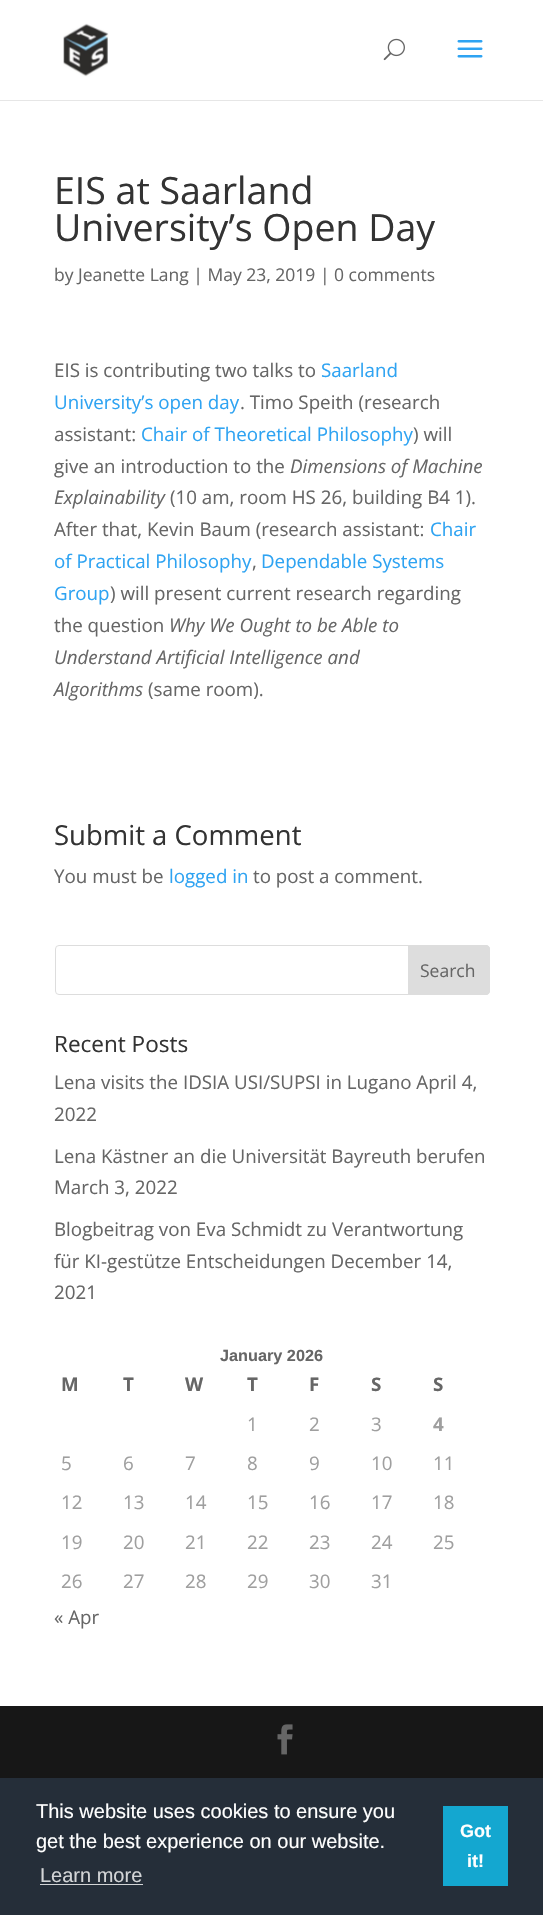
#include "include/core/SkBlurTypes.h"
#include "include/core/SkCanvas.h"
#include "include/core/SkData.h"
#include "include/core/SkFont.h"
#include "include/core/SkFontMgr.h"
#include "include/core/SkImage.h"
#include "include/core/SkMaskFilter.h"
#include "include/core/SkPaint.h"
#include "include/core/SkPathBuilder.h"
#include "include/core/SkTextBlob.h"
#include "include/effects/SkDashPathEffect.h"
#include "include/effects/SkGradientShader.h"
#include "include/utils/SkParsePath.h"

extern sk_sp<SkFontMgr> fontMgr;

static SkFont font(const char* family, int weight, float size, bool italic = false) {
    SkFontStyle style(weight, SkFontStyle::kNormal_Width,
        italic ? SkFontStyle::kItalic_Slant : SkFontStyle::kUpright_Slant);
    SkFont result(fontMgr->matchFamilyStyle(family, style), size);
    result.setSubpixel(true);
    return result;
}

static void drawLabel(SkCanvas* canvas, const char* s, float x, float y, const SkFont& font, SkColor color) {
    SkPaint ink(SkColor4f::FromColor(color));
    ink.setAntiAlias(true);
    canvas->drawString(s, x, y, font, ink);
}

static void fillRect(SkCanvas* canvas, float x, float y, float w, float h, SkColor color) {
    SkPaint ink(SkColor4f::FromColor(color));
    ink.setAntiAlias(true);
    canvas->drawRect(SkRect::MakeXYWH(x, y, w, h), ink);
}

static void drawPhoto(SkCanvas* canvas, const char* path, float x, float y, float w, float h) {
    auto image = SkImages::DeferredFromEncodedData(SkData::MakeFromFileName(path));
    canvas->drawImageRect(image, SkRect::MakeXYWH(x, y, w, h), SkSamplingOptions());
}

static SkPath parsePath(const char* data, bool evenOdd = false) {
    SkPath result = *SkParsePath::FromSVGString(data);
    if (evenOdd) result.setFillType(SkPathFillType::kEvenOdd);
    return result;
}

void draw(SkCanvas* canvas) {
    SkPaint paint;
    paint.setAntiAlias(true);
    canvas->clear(0xFFFFFFFF);
    paint.setColor(0xFFE6E6E6);
    canvas->drawPath(parsePath("M0 100V101H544V1V100Z"), paint);
    drawPhoto(canvas, "assets/img1.png", 63, 23, 46, 54);
    drawPhoto(canvas, "assets/img2.png", 383, 38, 22, 23);
    drawPhoto(canvas, "assets/img3.png", 457, 40, 26, 18);
    SkFont font1 = font("Open Sans", 400, 37.5f);
    drawLabel(canvas, "EIS at Saarland", 54, 204, font1, 0xFF333333);
    drawLabel(canvas, "University’s Open Day", 54, 241, font1, 0xFF333333);
    SkFont font2 = font("Open Sans", 400, 17.5f);
    drawLabel(canvas, "by Jeanette Lang | May 23, 2019 | 0 comments", 54, 281, font2, 0xFF666666);
    SkFont font3 = font("Open Sans", 400, 18.75f);
    drawLabel(canvas, "EIS is contributing two talks to", 54, 377, font3, 0xFF666666);
    drawLabel(canvas, "Saarland", 321, 377, font3, 0xFF2EA3F2);
    drawLabel(canvas, "University’s open day", 54, 409, font3, 0xFF2EA3F2);
    drawLabel(canvas, ". Timo Speith (research", 240, 409, font3, 0xFF666666);
    drawLabel(canvas, "assistant:", 54, 441, font3, 0xFF666666);
    drawLabel(canvas, "Chair of Theoretical Philosophy", 141, 441, font3, 0xFF2EA3F2);
    drawLabel(canvas, ") will", 413, 441, font3, 0xFF666666);
    drawLabel(canvas, "give an introduction to the", 54, 473, font3, 0xFF666666);
    SkFont font4 = font("Open Sans", 400, 18.75f, true);
    drawLabel(canvas, "Dimensions of Machine", 290, 473, font4, 0xFF666666);
    drawLabel(canvas, "Explainability", 54, 504, font4, 0xFF666666);
    drawLabel(canvas, "(10 am, room HS 26, building B4 1).", 170, 504, font3, 0xFF666666);
    drawLabel(canvas, "After that, Kevin Baum (research assistant:", 54, 536, font3, 0xFF666666);
    drawLabel(canvas, "Chair", 430, 536, font3, 0xFF2EA3F2);
    drawLabel(canvas, "of Practical Philosophy", 54, 568, font3, 0xFF2EA3F2);
    drawLabel(canvas, ",", 252, 568, font3, 0xFF666666);
    drawLabel(canvas, "Dependable Systems", 261, 568, font3, 0xFF2EA3F2);
    drawLabel(canvas, "Group", 54, 600, font3, 0xFF2EA3F2);
    drawLabel(canvas, ") will present current research regarding", 110, 600, font3, 0xFF666666);
    drawLabel(canvas, "the question", 54, 632, font3, 0xFF666666);
    drawLabel(canvas, "Why We Ought to be Able to", 169, 632, font4, 0xFF666666);
    drawLabel(canvas, "Understand Artificial Intelligence and", 54, 664, font4, 0xFF666666);
    drawLabel(canvas, "Algorithms", 54, 696, font4, 0xFF666666);
    drawLabel(canvas, "(same room).", 148, 696, font3, 0xFF666666);
    SkFont font5 = font("Open Sans", 400, 27.5f);
    drawLabel(canvas, "Submit a Comment", 54, 845, font5, 0xFF333333);
    drawLabel(canvas, "You must be", 54, 883, font3, 0xFF666666);
    drawLabel(canvas, "logged in", 169, 883, font3, 0xFF2EA3F2);
    drawLabel(canvas, "to post a comment.", 253, 883, font3, 0xFF666666);
    paint.setStroke(true);
    paint.setStrokeWidth(1);
    paint.setColor(0xFFDDDDDD);
    canvas->drawRoundRect(SkRect::MakeXYWH(55.5f, 945.5f, 434, 49), 3.5f, 3.5f, paint);
    paint.setStroke(false);
    canvas->drawPath(parsePath("M408.5 945.5H486C488 945.5 489.5 947 489.5 949V991C489.5 993 488 994.5 486 994.5H408.5Z"), paint);
    paint.setStroke(true);
    canvas->drawPath(parsePath("M408.5 945.5H486C488 945.5 489.5 947 489.5 949V991C489.5 993 488 994.5 486 994.5H408.5Z"), paint);
    drawLabel(canvas, "Search", 420, 977, font2, 0xFF666666);
    SkFont font6 = font("Open Sans", 400, 22.5f);
    drawLabel(canvas, "Recent Posts", 54, 1052, font6, 0xFF333333);
    drawLabel(canvas, "Lena visits the IDSIA USI/SUPSI in Lugano April 4,", 54, 1089, font3, 0xFF666666);
    drawLabel(canvas, "2022", 54, 1121, font3, 0xFF666666);
    drawLabel(canvas, "Lena Kästner an die Universität Bayreuth berufen", 54, 1163, font3, 0xFF666666);
    drawLabel(canvas, "March 3, 2022", 54, 1194, font3, 0xFF666666);
    drawLabel(canvas, "Blogbeitrag von Eva Schmidt zu Verantwortung", 54, 1236, font3, 0xFF666666);
    drawLabel(canvas, "für KI-gestütze Entscheidungen December 14,", 54, 1268, font3, 0xFF666666);
    drawLabel(canvas, "2021", 54, 1299, font3, 0xFF666666);
    SkFont font7 = font("Liberation Sans", 700, 16.25f);
    drawLabel(canvas, "January 2026", 220, 1361, font7, 0xFF666666);
    SkFont font8 = font("Open Sans", 700, 18.75f);
    drawLabel(canvas, "M", 61, 1391, font8, 0xFF666666);
    drawLabel(canvas, "T", 123, 1391, font8, 0xFF666666);
    drawLabel(canvas, "W", 185, 1391, font8, 0xFF666666);
    drawLabel(canvas, "T", 247, 1391, font8, 0xFF666666);
    drawLabel(canvas, "F", 309, 1391, font8, 0xFF666666);
    drawLabel(canvas, "S", 371, 1391, font8, 0xFF666666);
    drawLabel(canvas, "S", 433, 1391, font8, 0xFF666666);
    drawLabel(canvas, "1", 247, 1431, font3, 0xFF9F9F9F);
    drawLabel(canvas, "2", 309, 1431, font3, 0xFF9F9F9F);
    drawLabel(canvas, "3", 371, 1431, font3, 0xFF9F9F9F);
    drawLabel(canvas, "4", 433, 1431, font8, 0xFF9F9F9F);
    drawLabel(canvas, "5", 61, 1470, font3, 0xFF9F9F9F);
    drawLabel(canvas, "6", 123, 1470, font3, 0xFF9F9F9F);
    drawLabel(canvas, "7", 185, 1470, font3, 0xFF9F9F9F);
    drawLabel(canvas, "8", 247, 1470, font3, 0xFF9F9F9F);
    drawLabel(canvas, "9", 309, 1470, font3, 0xFF9F9F9F);
    drawLabel(canvas, "10", 371, 1470, font3, 0xFF9F9F9F);
    drawLabel(canvas, "11", 433, 1470, font3, 0xFF9F9F9F);
    drawLabel(canvas, "12", 61, 1509, font3, 0xFF9F9F9F);
    drawLabel(canvas, "13", 123, 1509, font3, 0xFF9F9F9F);
    drawLabel(canvas, "14", 185, 1509, font3, 0xFF9F9F9F);
    drawLabel(canvas, "15", 247, 1509, font3, 0xFF9F9F9F);
    drawLabel(canvas, "16", 309, 1509, font3, 0xFF9F9F9F);
    drawLabel(canvas, "17", 371, 1509, font3, 0xFF9F9F9F);
    drawLabel(canvas, "18", 433, 1509, font3, 0xFF9F9F9F);
    drawLabel(canvas, "19", 61, 1549, font3, 0xFF9F9F9F);
    drawLabel(canvas, "20", 123, 1549, font3, 0xFF9F9F9F);
    drawLabel(canvas, "21", 185, 1549, font3, 0xFF9F9F9F);
    drawLabel(canvas, "22", 247, 1549, font3, 0xFF9F9F9F);
    drawLabel(canvas, "23", 309, 1549, font3, 0xFF9F9F9F);
    drawLabel(canvas, "24", 371, 1549, font3, 0xFF9F9F9F);
    drawLabel(canvas, "25", 433, 1549, font3, 0xFF9F9F9F);
    drawLabel(canvas, "26", 61, 1588, font3, 0xFF9F9F9F);
    drawLabel(canvas, "27", 123, 1588, font3, 0xFF9F9F9F);
    drawLabel(canvas, "28", 185, 1588, font3, 0xFF9F9F9F);
    drawLabel(canvas, "29", 247, 1588, font3, 0xFF9F9F9F);
    drawLabel(canvas, "30", 309, 1588, font3, 0xFF9F9F9F);
    drawLabel(canvas, "31", 371, 1588, font3, 0xFF9F9F9F);
    drawLabel(canvas, "« Apr", 54, 1624, font3, 0xFF666666);
    fillRect(canvas, 0, 1706, 543, 72, 0xFF171717);
    drawPhoto(canvas, "assets/img4.png", 277, 1724, 16, 31);
    fillRect(canvas, 0, 1778, 543, 137, 0xFF252E39);
    SkFont font9 = font("Liberation Sans", 400, 20);
    drawLabel(canvas, "This website uses cookies to ensure you", 36, 1818, font9, 0xFFFFFFFF);
    drawLabel(canvas, "get the best experience on our website.", 36, 1848, font9, 0xFFFFFFFF);
    drawLabel(canvas, "Learn more", 40, 1882, font9, 0xFFD3D5D7);
    fillRect(canvas, 40, 1884, 103, 1, 0xFFD3D5D7);
    fillRect(canvas, 443, 1806, 65, 80, 0xFF14A7D0);
    SkFont font10 = font("Liberation Sans", 700, 18);
    drawLabel(canvas, "Got", 460, 1837, font10, 0xFFFFFFFF);
    drawLabel(canvas, "it!", 467, 1867, font10, 0xFFFFFFFF);
}
